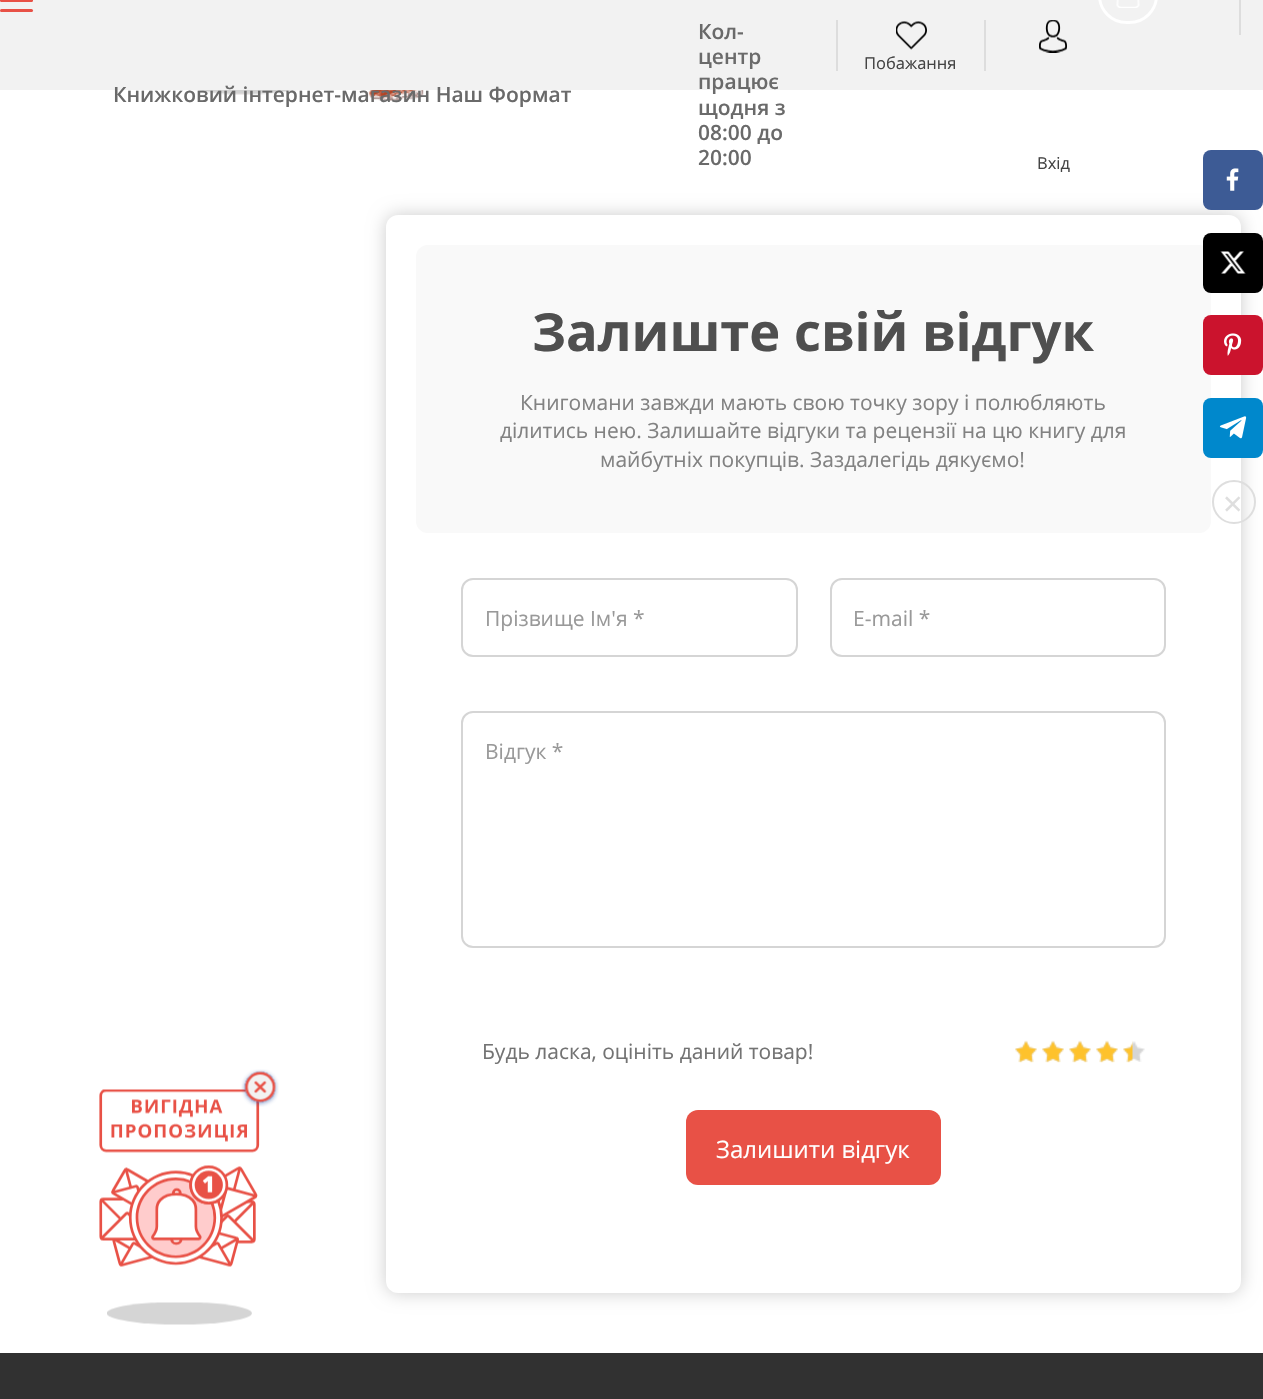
#include "include/core/SkBlurTypes.h"
#include "include/core/SkCanvas.h"
#include "include/core/SkData.h"
#include "include/core/SkFont.h"
#include "include/core/SkFontMgr.h"
#include "include/core/SkImage.h"
#include "include/core/SkMaskFilter.h"
#include "include/core/SkPaint.h"
#include "include/core/SkPathBuilder.h"
#include "include/core/SkTextBlob.h"
#include "include/effects/SkDashPathEffect.h"
#include "include/effects/SkGradientShader.h"
#include "include/utils/SkParsePath.h"

extern sk_sp<SkFontMgr> fontMgr;

static SkFont font(const char* family, int weight, float size, bool italic = false) {
    SkFontStyle style(weight, SkFontStyle::kNormal_Width,
        italic ? SkFontStyle::kItalic_Slant : SkFontStyle::kUpright_Slant);
    SkFont result(fontMgr->matchFamilyStyle(family, style), size);
    result.setSubpixel(true);
    return result;
}

static void drawLabel(SkCanvas* canvas, const char* s, float x, float y, const SkFont& font, SkColor color) {
    SkPaint ink(SkColor4f::FromColor(color));
    ink.setAntiAlias(true);
    canvas->drawString(s, x, y, font, ink);
}

static void fillRect(SkCanvas* canvas, float x, float y, float w, float h, SkColor color) {
    SkPaint ink(SkColor4f::FromColor(color));
    ink.setAntiAlias(true);
    canvas->drawRect(SkRect::MakeXYWH(x, y, w, h), ink);
}

static void fillRRect(SkCanvas* canvas, float x, float y, float w, float h, float radius, SkColor color) {
    SkPaint ink(SkColor4f::FromColor(color));
    ink.setAntiAlias(true);
    canvas->drawRoundRect(SkRect::MakeXYWH(x, y, w, h), radius, radius, ink);
}

static void drawPhoto(SkCanvas* canvas, const char* path, float x, float y, float w, float h) {
    auto image = SkImages::DeferredFromEncodedData(SkData::MakeFromFileName(path));
    canvas->drawImageRect(image, SkRect::MakeXYWH(x, y, w, h), SkSamplingOptions());
}

void draw(SkCanvas* canvas) {
    SkPaint paint;
    paint.setAntiAlias(true);
    canvas->clear(0xFFFFFFFF);
    fillRect(canvas, 0, 0, 1263, 90, 0xFFF2F2F2);
    fillRRect(canvas, 0, -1, 33, 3, 1.5f, 0xFFE85146);
    fillRRect(canvas, 0, 9, 33, 3, 1.5f, 0xFFE85146);
    fillRect(canvas, 1239, 0, 2, 35, 0xFFDDDDDD);
    paint.setStroke(true);
    paint.setStrokeWidth(3);
    paint.setColor(0xFFFFFFFF);
    canvas->drawRoundRect(SkRect::MakeXYWH(1099.5f, -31.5f, 57, 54), 28.5f, 28.5f, paint);
    drawPhoto(canvas, "assets/img1.png", 1116, 0, 24, 8);
    SkFont font1 = font("Open Sans", 600, 21);
    drawLabel(canvas, "Кол-", 698, 39, font1, 0xFF6A6A6A);
    drawLabel(canvas, "центр", 698, 64, font1, 0xFF6A6A6A);
    drawLabel(canvas, "працює", 698, 89, font1, 0xFF6A6A6A);
    drawLabel(canvas, "щодня з", 698, 115, font1, 0xFF6A6A6A);
    drawLabel(canvas, "08:00 до", 698, 140, font1, 0xFF6A6A6A);
    drawLabel(canvas, "20:00", 698, 165, font1, 0xFF6A6A6A);
    fillRect(canvas, 984, 20, 2, 51, 0xFFDDDDDD);
    fillRect(canvas, 836, 20, 2, 51, 0xFFDDDDDD);
    drawPhoto(canvas, "assets/img2.png", 896, 21, 31, 29);
    SkFont font2 = font("Open Sans", 400, 16.5f);
    drawLabel(canvas, "Побажання", 864, 69, font2, 0xFF444444);
    drawPhoto(canvas, "assets/img4.png", 192, 90, 232, 11);
    drawLabel(canvas, "Книжковий інтернет-магазин Наш Формат", 113, 102, font1, 0xFF6A6A6A);
    drawPhoto(canvas, "assets/img3.png", 1039, 20, 28, 33);
    drawLabel(canvas, "Вхід", 1037, 169, font2, 0xFF444444);
    paint.setStroke(false);
    paint.setColor(0x33000000);
    paint.setMaskFilter(SkMaskFilter::MakeBlur(kNormal_SkBlurStyle, 9));
    canvas->drawRoundRect(SkRect::MakeXYWH(386, 215, 855, 1078), 12, 12, paint);
    paint.setMaskFilter(nullptr);
    fillRRect(canvas, 386, 215, 855, 1078, 12, 0xFFFFFFFF);
    fillRRect(canvas, 416, 245, 795, 288, 12, 0xFFF9F9F9);
    SkFont font3 = font("Open Sans", 700, 52.5f);
    drawLabel(canvas, "Залиште свій відгук", 532, 351, font3, 0xFF4F4F4F);
    SkFont font4 = font("Open Sans", 400, 21);
    drawLabel(canvas, "Книгомани завжди мають свою точку зору і полюбляють", 520, 410, font4, 0xFF828282);
    drawLabel(canvas, "ділитись нею. Залишайте відгуки та рецензії на цю книгу для", 500, 438, font4, 0xFF828282);
    drawLabel(canvas, "майбутніх покупців. Заздалегідь дякуємо!", 600, 467, font4, 0xFF828282);
    paint.setStroke(true);
    paint.setStrokeWidth(2);
    paint.setColor(0xFFD5D5D5);
    canvas->drawRoundRect(SkRect::MakeXYWH(462, 579, 335, 77), 11, 11, paint);
    drawLabel(canvas, "Прізвище Iм'я *", 485, 626, font4, 0xFF999999);
    canvas->drawRoundRect(SkRect::MakeXYWH(831, 579, 334, 77), 11, 11, paint);
    drawLabel(canvas, "E-mail *", 853, 626, font4, 0xFF999999);
    canvas->drawRoundRect(SkRect::MakeXYWH(462, 712, 703, 235), 11, 11, paint);
    drawLabel(canvas, "Відгук *", 485, 759, font4, 0xFF999999);
    drawLabel(canvas, "Будь ласка, оцініть даний товар!", 482, 1059, font4, 0xFF737373);
    drawPhoto(canvas, "assets/img5.png", 1015, 1041, 130, 21);
    drawPhoto(canvas, "assets/img6.png", 1015, 1040, 118, 23);
    fillRRect(canvas, 686, 1110, 255, 75, 12, 0xFFE85146);
    SkFont font5 = font("Open Sans", 400, 24);
    drawLabel(canvas, "Залишити відгук", 716, 1158, font5, 0xFFFFFFFF);
    fillRRect(canvas, 1203, 150, 60, 60, 8, 0xFF3D5B95);
    drawPhoto(canvas, "assets/img7.png", 1226, 168, 13, 23);
    fillRRect(canvas, 1203, 233, 60, 60, 8, 0xFF000000);
    drawPhoto(canvas, "assets/img8.png", 1220, 251, 26, 23);
    fillRRect(canvas, 1203, 315, 60, 60, 8, 0xFFCB132D);
    drawPhoto(canvas, "assets/img9.png", 1224, 333, 18, 23);
    fillRRect(canvas, 1203, 398, 60, 60, 8, 0xFF0088CC);
    drawPhoto(canvas, "assets/img10.png", 1219, 416, 28, 23);
    paint.setColor(0xFFDEDEDE);
    canvas->drawCircle(1234, 502, 21, paint);
    SkFont font6 = font("Open Sans", 400, 34);
    drawLabel(canvas, "×", 1223, 516, font6, 0xFFDEDEDE);
    drawPhoto(canvas, "assets/img12.png", 99, 1089, 161, 178);
    drawPhoto(canvas, "assets/img11.png", 241, 1069, 38, 38);
    drawPhoto(canvas, "assets/img13.png", 107, 1302, 145, 23);
    fillRect(canvas, 0, 1353, 1263, 46, 0xFF313131);
}
